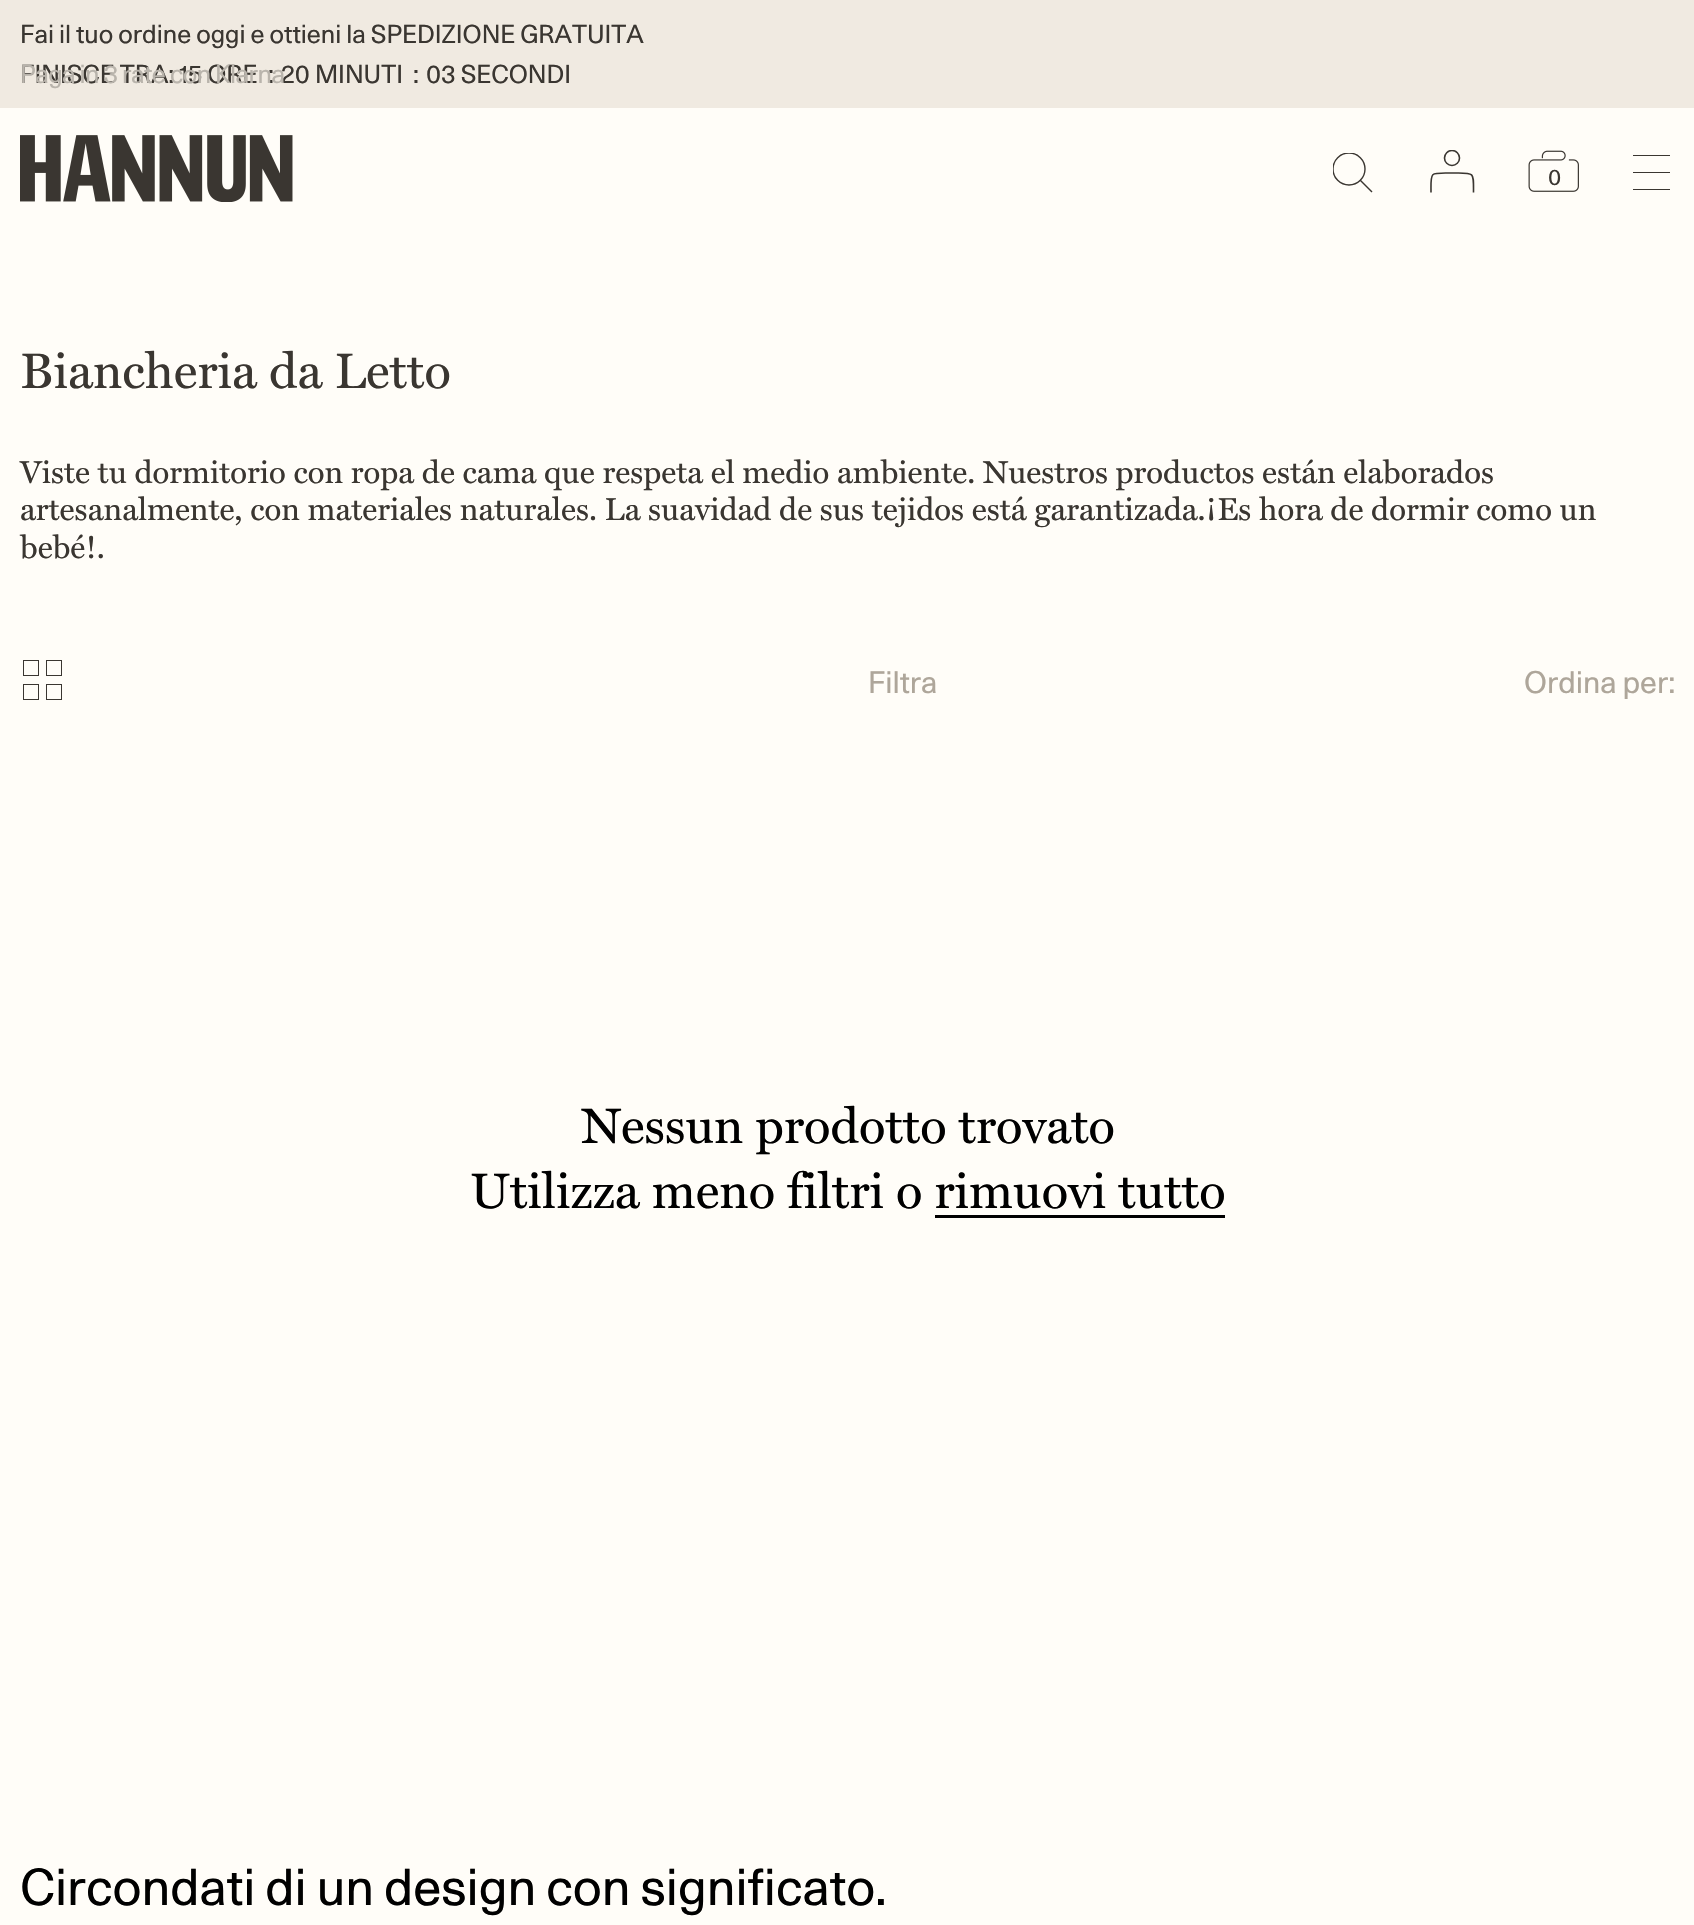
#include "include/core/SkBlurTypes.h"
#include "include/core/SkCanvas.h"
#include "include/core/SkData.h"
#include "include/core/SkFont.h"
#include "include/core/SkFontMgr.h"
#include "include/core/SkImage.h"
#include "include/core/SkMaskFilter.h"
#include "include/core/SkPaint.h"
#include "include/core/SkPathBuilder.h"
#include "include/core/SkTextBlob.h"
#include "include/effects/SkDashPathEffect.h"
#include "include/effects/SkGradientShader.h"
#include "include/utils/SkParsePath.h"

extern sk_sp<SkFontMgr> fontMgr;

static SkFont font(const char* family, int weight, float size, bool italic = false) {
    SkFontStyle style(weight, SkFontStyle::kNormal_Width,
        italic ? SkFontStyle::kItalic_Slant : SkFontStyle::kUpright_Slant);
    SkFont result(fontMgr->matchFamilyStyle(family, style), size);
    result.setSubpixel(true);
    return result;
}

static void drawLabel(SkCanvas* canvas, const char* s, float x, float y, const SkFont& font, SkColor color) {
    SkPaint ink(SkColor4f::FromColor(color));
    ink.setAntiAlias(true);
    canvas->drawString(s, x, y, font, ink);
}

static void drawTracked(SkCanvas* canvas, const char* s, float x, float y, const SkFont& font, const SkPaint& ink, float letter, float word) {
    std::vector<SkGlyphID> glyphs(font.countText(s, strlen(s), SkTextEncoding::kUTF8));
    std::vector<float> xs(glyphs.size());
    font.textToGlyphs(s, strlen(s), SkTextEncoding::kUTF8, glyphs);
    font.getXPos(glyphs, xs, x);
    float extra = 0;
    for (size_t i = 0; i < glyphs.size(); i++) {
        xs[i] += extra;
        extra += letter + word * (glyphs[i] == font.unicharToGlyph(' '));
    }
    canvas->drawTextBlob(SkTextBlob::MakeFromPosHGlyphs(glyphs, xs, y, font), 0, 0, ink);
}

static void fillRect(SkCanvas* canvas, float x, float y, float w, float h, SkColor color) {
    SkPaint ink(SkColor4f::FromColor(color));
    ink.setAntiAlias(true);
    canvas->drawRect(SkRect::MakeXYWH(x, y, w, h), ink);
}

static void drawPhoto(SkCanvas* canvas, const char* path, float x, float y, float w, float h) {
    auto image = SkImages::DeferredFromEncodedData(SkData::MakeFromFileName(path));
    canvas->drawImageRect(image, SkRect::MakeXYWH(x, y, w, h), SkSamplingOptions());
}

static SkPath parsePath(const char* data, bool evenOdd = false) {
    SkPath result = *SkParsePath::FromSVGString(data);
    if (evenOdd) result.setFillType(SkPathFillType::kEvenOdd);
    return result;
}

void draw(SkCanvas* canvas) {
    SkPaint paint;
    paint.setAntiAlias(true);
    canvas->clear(0xFFFFFDF8);
    fillRect(canvas, 0, 0, 1694, 108, 0xFFF0EAE1);
    SkFont font1 = font("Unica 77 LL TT", 400, 25);
    drawLabel(canvas, "Fai il tuo ordine oggi e ottieni la SPEDIZIONE GRATUITA", 20, 43, font1, 0xFF3A3631);
    drawLabel(canvas, "FINISCE TRA: 15 ORE", 20, 83, font1, 0xFF3A3631);
    drawLabel(canvas, ":", 268, 83, font1, 0xFF3A3631);
    drawLabel(canvas, "20 MINUTI", 281, 83, font1, 0xFF3A3631);
    drawLabel(canvas, ":", 413, 83, font1, 0xFF3A3631);
    drawLabel(canvas, "03 SECONDI", 426, 83, font1, 0xFF3A3631);
    paint.setColor(0xFFB9B4AC);
    drawTracked(canvas, "Paga in 3 rate con Klarna", 20, 83, font1, paint, -0.5f, 0);
    drawPhoto(canvas, "assets/img1.png", 20, 135, 273, 67);
    canvas->save();
    canvas->clipRect(SkRect::MakeXYWH(1333, 153, 42, 42));
    paint.setStroke(true);
    paint.setStrokeWidth(1.4f);
    paint.setColor(0xFF3A3631);
    canvas->drawCircle(1349, 169, 16, paint);
    canvas->restore();
    canvas->drawPath(parsePath("M1360 180L1372 192"), paint);
    canvas->save();
    canvas->clipRect(SkRect::MakeXYWH(1428, 150, 47, 43));
    paint.setStrokeWidth(1.6f);
    canvas->drawCircle(1452, 158, 7.5f, paint);
    canvas->restore();
    canvas->drawPath(parsePath("M1473.5 192.5C1473.5 171 1475 173 1452 173C1429 173 1431 171 1431 192.5"), paint);
    drawPhoto(canvas, "assets/img2.png", 1528, 150, 51, 42);
    SkFont font2 = font("Unica 77 LL TT", 400, 22);
    drawLabel(canvas, "0", 1548, 185, font2, 0xFF3A3631);
    fillRect(canvas, 1633, 155, 37, 1, 0xFF3A3631);
    fillRect(canvas, 1633, 172, 37, 1, 0xFF3A3631);
    fillRect(canvas, 1633, 189, 37, 1, 0xFF3A3631);
    SkFont font3 = font("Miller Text", 400, 50);
    drawLabel(canvas, "Biancheria da Letto", 20, 388, font3, 0xFF3A3631);
    SkFont font4 = font("Miller Text", 400, 31.75f);
    drawLabel(canvas, "Viste tu dormitorio con ropa de cama que respeta el medio ambiente. Nuestros productos están elaborados", 20, 483, font4, 0xFF3A3631);
    drawLabel(canvas, "artesanalmente, con materiales naturales. La suavidad de sus tejidos está garantizada.¡Es hora de dormir como un", 20, 520, font4, 0xFF3A3631);
    drawLabel(canvas, "bebé!.", 20, 558, font4, 0xFF3A3631);
    paint.setStrokeWidth(1);
    canvas->drawRect(SkRect::MakeXYWH(23.5f, 660.5f, 15, 15), paint);
    canvas->drawRect(SkRect::MakeXYWH(46.5f, 660.5f, 15, 15), paint);
    canvas->drawRect(SkRect::MakeXYWH(23.5f, 684.5f, 15, 15), paint);
    canvas->drawRect(SkRect::MakeXYWH(46.5f, 684.5f, 15, 15), paint);
    SkFont font5 = font("Unica 77 LL TT", 400, 30);
    drawLabel(canvas, "Filtra", 868, 693, font5, 0xFFAEA69A);
    drawLabel(canvas, "Ordina per:", 1524, 693, font5, 0xFFAEA69A);
    drawLabel(canvas, "Nessun prodotto trovato", 581, 1143, font3, 0xFF000000);
    drawLabel(canvas, "Utilizza meno filtri o rimuovi tutto", 470, 1208, font3, 0xFF000000);
    fillRect(canvas, 935, 1215, 290, 3, 0xFF000000);
    SkFont font6 = font("Unica 77 LL TT", 400, 50);
    drawLabel(canvas, "Circondati di un design con significato.", 20, 1905, font6, 0xFF000000);
}
